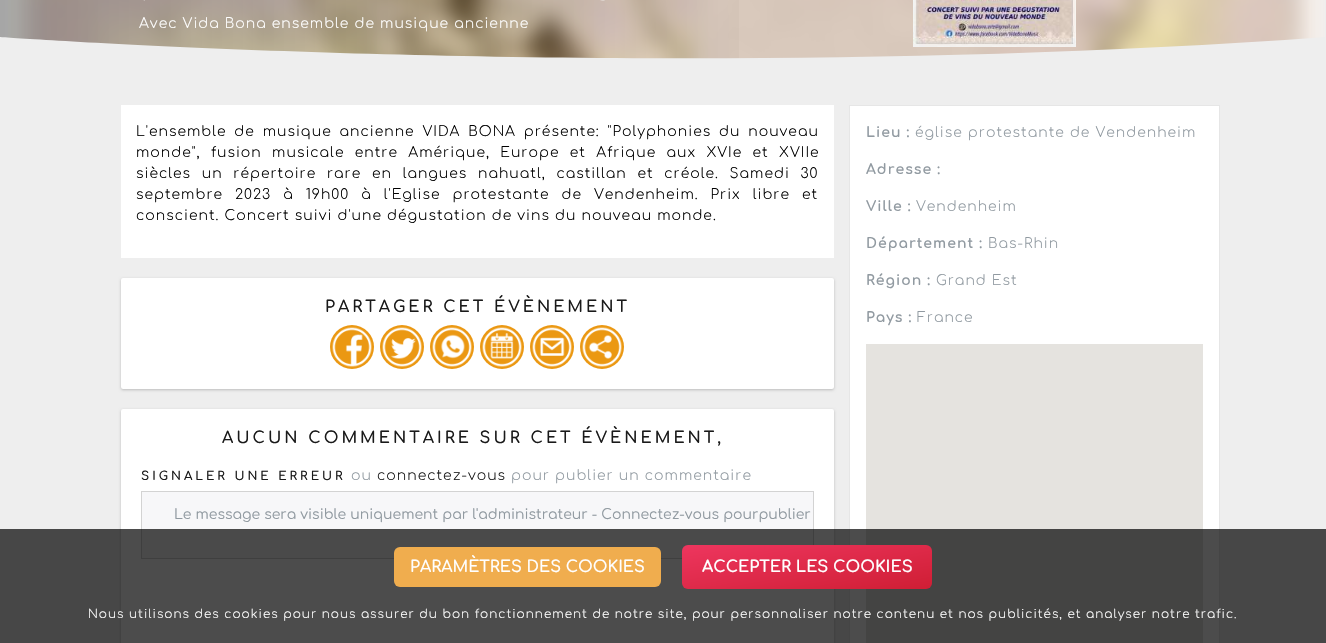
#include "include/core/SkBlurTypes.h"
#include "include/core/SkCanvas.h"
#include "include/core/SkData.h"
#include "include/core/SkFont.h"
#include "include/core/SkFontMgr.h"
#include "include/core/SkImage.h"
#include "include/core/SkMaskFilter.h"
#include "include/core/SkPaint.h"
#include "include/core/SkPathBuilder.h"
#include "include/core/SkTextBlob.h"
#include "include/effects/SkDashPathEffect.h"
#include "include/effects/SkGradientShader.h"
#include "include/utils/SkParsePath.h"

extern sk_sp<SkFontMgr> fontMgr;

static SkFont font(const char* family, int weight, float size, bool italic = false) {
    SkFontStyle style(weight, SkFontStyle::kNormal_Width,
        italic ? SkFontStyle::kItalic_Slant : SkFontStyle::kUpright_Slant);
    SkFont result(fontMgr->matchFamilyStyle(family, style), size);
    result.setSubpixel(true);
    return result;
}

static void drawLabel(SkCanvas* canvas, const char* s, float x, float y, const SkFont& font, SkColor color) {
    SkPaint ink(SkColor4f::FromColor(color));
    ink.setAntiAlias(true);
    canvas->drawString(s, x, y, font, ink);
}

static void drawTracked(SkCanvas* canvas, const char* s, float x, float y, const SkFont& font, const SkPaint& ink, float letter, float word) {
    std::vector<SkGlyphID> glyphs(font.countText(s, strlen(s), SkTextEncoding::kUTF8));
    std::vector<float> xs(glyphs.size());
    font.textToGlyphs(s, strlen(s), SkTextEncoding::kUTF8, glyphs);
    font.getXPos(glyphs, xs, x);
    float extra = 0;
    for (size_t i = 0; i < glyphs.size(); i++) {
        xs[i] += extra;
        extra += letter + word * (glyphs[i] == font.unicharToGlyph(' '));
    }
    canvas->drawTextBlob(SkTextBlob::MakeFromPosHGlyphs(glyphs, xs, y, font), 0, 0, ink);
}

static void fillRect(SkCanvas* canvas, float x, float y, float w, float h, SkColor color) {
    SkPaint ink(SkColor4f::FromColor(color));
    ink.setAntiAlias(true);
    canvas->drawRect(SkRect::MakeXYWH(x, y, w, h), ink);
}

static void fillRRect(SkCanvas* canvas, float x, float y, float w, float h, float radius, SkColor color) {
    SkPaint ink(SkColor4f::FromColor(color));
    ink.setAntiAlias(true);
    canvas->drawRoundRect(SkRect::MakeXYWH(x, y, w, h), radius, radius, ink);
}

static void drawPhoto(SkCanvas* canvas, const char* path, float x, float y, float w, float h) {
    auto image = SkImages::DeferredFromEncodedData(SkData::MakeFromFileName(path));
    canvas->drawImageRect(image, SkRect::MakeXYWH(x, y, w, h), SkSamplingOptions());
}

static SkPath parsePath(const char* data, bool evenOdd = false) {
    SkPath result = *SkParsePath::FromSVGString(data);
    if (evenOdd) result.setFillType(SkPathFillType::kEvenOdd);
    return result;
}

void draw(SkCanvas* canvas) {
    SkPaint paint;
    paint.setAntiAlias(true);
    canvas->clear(0xFFEEEEEE);
    drawPhoto(canvas, "assets/img1.png", 8, 0, 1317, 59);
    {
        const SkColor colors[] = {0x4D000000, 0x00000000};
        const float stops[] = {0, 0.6f};
        const SkPoint ends[] = {{0, -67}, {1326, -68}};
        paint.setShader(SkGradientShader::MakeLinear(ends, colors, stops, 2, SkTileMode::kClamp));
        paint.setAlpha(255);
    }
    canvas->drawRect(SkRect::MakeXYWH(0, 0, 739, 59), paint);
    drawPhoto(canvas, "assets/img2.png", 913, 0, 163, 47);
    drawPhoto(canvas, "assets/img3.png", 143, 0, 2, 1);
    drawPhoto(canvas, "assets/img4.png", 600, 0, 5, 1);
    SkFont font1 = font("Comfortaa", 300, 14);
    paint.setShader(nullptr);
    paint.setColor(0xFFFFFFFF);
    drawTracked(canvas, "Avec Vida Bona ensemble de musique ancienne", 139, 28, font1, paint, 1, 0);
    canvas->save();
    canvas->clipRect(SkRect::MakeXYWH(0, 37, 1326, 22));
    paint.setColor(0xFFEEEEEE);
    canvas->drawPath(parsePath("M-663 81H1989V37H1326C665 85 0 37 0 37H-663Z"), paint);
    canvas->restore();
    fillRect(canvas, 121, 105, 713, 153, 0xFFFFFFFF);
    paint.setColor(0xFF000000);
    drawTracked(canvas, "L'ensemble de musique ancienne VIDA BONA présente: \"Polyphonies du nouveau", 136, 136, font1, paint, 1, 2.75f);
    drawTracked(canvas, "monde\", fusion musicale entre Amérique, Europe et Afrique aux XVIe et XVIIe", 136, 157, font1, paint, 1, 5.25f);
    drawTracked(canvas, "siècles un répertoire rare en langues nahuatl, castillan et créole. Samedi 30", 136, 178, font1, paint, 1, 5.6f);
    drawTracked(canvas, "septembre 2023 à 19h00 à l'Eglise protestante de Vendenheim. Prix libre et", 136, 199, font1, paint, 1, 6.9f);
    drawTracked(canvas, "conscient. Concert suivi d'une dégustation de vins du nouveau monde.", 136, 220, font1, paint, 1, 0);
    paint.setColor(0xFFBBBBBB);
    paint.setMaskFilter(SkMaskFilter::MakeBlur(kNormal_SkBlurStyle, 1.5f));
    canvas->drawRoundRect(SkRect::MakeXYWH(121, 279, 713, 111), 2, 2, paint);
    paint.setMaskFilter(nullptr);
    fillRRect(canvas, 121, 278, 713, 111, 2, 0xFFFFFFFF);
    SkFont font2 = font("Comfortaa", 600, 16);
    paint.setColor(0xFF1A1A1A);
    drawTracked(canvas, "PARTAGER CET ÉVÈNEMENT", 325, 312, font2, paint, 3, 0);
    paint.setColor(0xFFEB9812);
    canvas->drawCircle(352, 347, 22, paint);
    drawPhoto(canvas, "assets/img5.png", 332, 327, 40, 40);
    canvas->drawCircle(402, 347, 22, paint);
    drawPhoto(canvas, "assets/img6.png", 382, 327, 40, 40);
    canvas->drawCircle(452, 347, 22, paint);
    drawPhoto(canvas, "assets/img7.png", 432, 327, 40, 40);
    canvas->drawCircle(502, 347, 22, paint);
    drawPhoto(canvas, "assets/img8.png", 482, 327, 40, 40);
    canvas->drawCircle(552, 347, 22, paint);
    drawPhoto(canvas, "assets/img9.png", 532, 327, 40, 40);
    canvas->drawCircle(602, 347, 22, paint);
    drawPhoto(canvas, "assets/img10.png", 582, 327, 40, 40);
    paint.setColor(0xFFBBBBBB);
    paint.setMaskFilter(SkMaskFilter::MakeBlur(kNormal_SkBlurStyle, 1.5f));
    canvas->drawRoundRect(SkRect::MakeXYWH(121, 410, 713, 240), 2, 2, paint);
    paint.setMaskFilter(nullptr);
    fillRRect(canvas, 121, 409, 713, 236, 2, 0xFFFFFFFF);
    paint.setColor(0xFF1A1A1A);
    drawTracked(canvas, "AUCUN COMMENTAIRE SUR CET ÉVÈNEMENT,", 222, 443, font2, paint, 3, 0);
    SkFont font3 = font("Comfortaa", 600, 12);
    drawTracked(canvas, "SIGNALER UNE ERREUR", 141, 480, font3, paint, 3, 0);
    paint.setColor(0xFF919AA1);
    drawTracked(canvas, "ou", 351, 480, font1, paint, 1, 0);
    paint.setColor(0xFF1A1A1A);
    drawTracked(canvas, "connectez-vous", 377, 480, font1, paint, 1, 0);
    paint.setColor(0xFF919AA1);
    drawTracked(canvas, "pour publier un commentaire", 511, 480, font1, paint, 1, 0);
    paint.setColor(0xFFF7F7F9);
    canvas->drawRect(SkRect::MakeXYWH(141.5f, 491.5f, 672, 67), paint);
    paint.setStroke(true);
    paint.setStrokeWidth(1);
    paint.setColor(0xFFD3D3D3);
    canvas->drawRect(SkRect::MakeXYWH(141.5f, 491.5f, 672, 67), paint);
    SkFont font4 = font("Comfortaa", 400, 14);
    drawLabel(canvas, "Le message sera visible uniquement par l'administrateur - Connectez-vous pourpublier", 174, 519, font4, 0xFF919AA1);
    paint.setStroke(false);
    paint.setColor(0xFFFFFFFF);
    canvas->drawRect(SkRect::MakeXYWH(849.5f, 105.5f, 370, 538), paint);
    paint.setStroke(true);
    paint.setColor(0xFFE6E6E6);
    canvas->drawRect(SkRect::MakeXYWH(849.5f, 105.5f, 370, 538), paint);
    SkFont font5 = font("Comfortaa", 700, 14);
    paint.setStroke(false);
    paint.setColor(0xFF919AA1);
    drawTracked(canvas, "Lieu :", 866, 137, font5, paint, 1, 0);
    drawTracked(canvas, "église protestante de Vendenheim", 915, 137, font1, paint, 1, 0);
    drawTracked(canvas, "Adresse :", 866, 174, font5, paint, 1, 0);
    drawTracked(canvas, "Ville :", 866, 211, font5, paint, 1, 0);
    drawTracked(canvas, "Vendenheim", 916, 211, font1, paint, 1, 0);
    drawTracked(canvas, "Département :", 866, 248, font5, paint, 1, 0);
    drawTracked(canvas, "Bas-Rhin", 988, 248, font1, paint, 1, 0);
    drawTracked(canvas, "Région :", 866, 285, font5, paint, 1, 0);
    drawTracked(canvas, "Grand Est", 936, 285, font1, paint, 1, 0);
    drawTracked(canvas, "Pays :", 866, 322, font5, paint, 1, 0);
    drawTracked(canvas, "France", 917, 322, font1, paint, 1, 0);
    fillRect(canvas, 866, 344, 337, 299, 0xFFE5E3DF);
    fillRect(canvas, 0, 529, 1326, 114, 0xB3000000);
    fillRRect(canvas, 394, 547, 267, 40, 6, 0xFFF0AD4E);
    drawLabel(canvas, "PARAMÈTRES DES COOKIES", 410, 572, font2, 0xFFFFFFFF);
    {
        const SkColor colors[] = {0xFFCF1E34, 0xFFEE365F};
        const float stops[] = {0, 1};
        const SkPoint ends[] = {{815, 611}, {799, 523}};
        paint.setShader(SkGradientShader::MakeLinear(ends, colors, stops, 2, SkTileMode::kClamp));
        paint.setAlpha(255);
    }
    canvas->drawRoundRect(SkRect::MakeXYWH(682, 545, 250, 44), 6, 6, paint);
    SkFont font6 = font("Comfortaa", 700, 16);
    drawLabel(canvas, "ACCEPTER LES COOKIES", 702, 572, font6, 0xFFFFFFFF);
    SkFont font7 = font("Comfortaa", 300, 12);
    paint.setShader(nullptr);
    paint.setColor(0xFFFFFFFF);
    drawTracked(canvas, "Nous utilisons des cookies pour nous assurer du bon fonctionnement de notre site, pour personnaliser notre contenu et nos publicités, et analyser notre trafic.", 88, 618, font7, paint, 1, 0);
}
